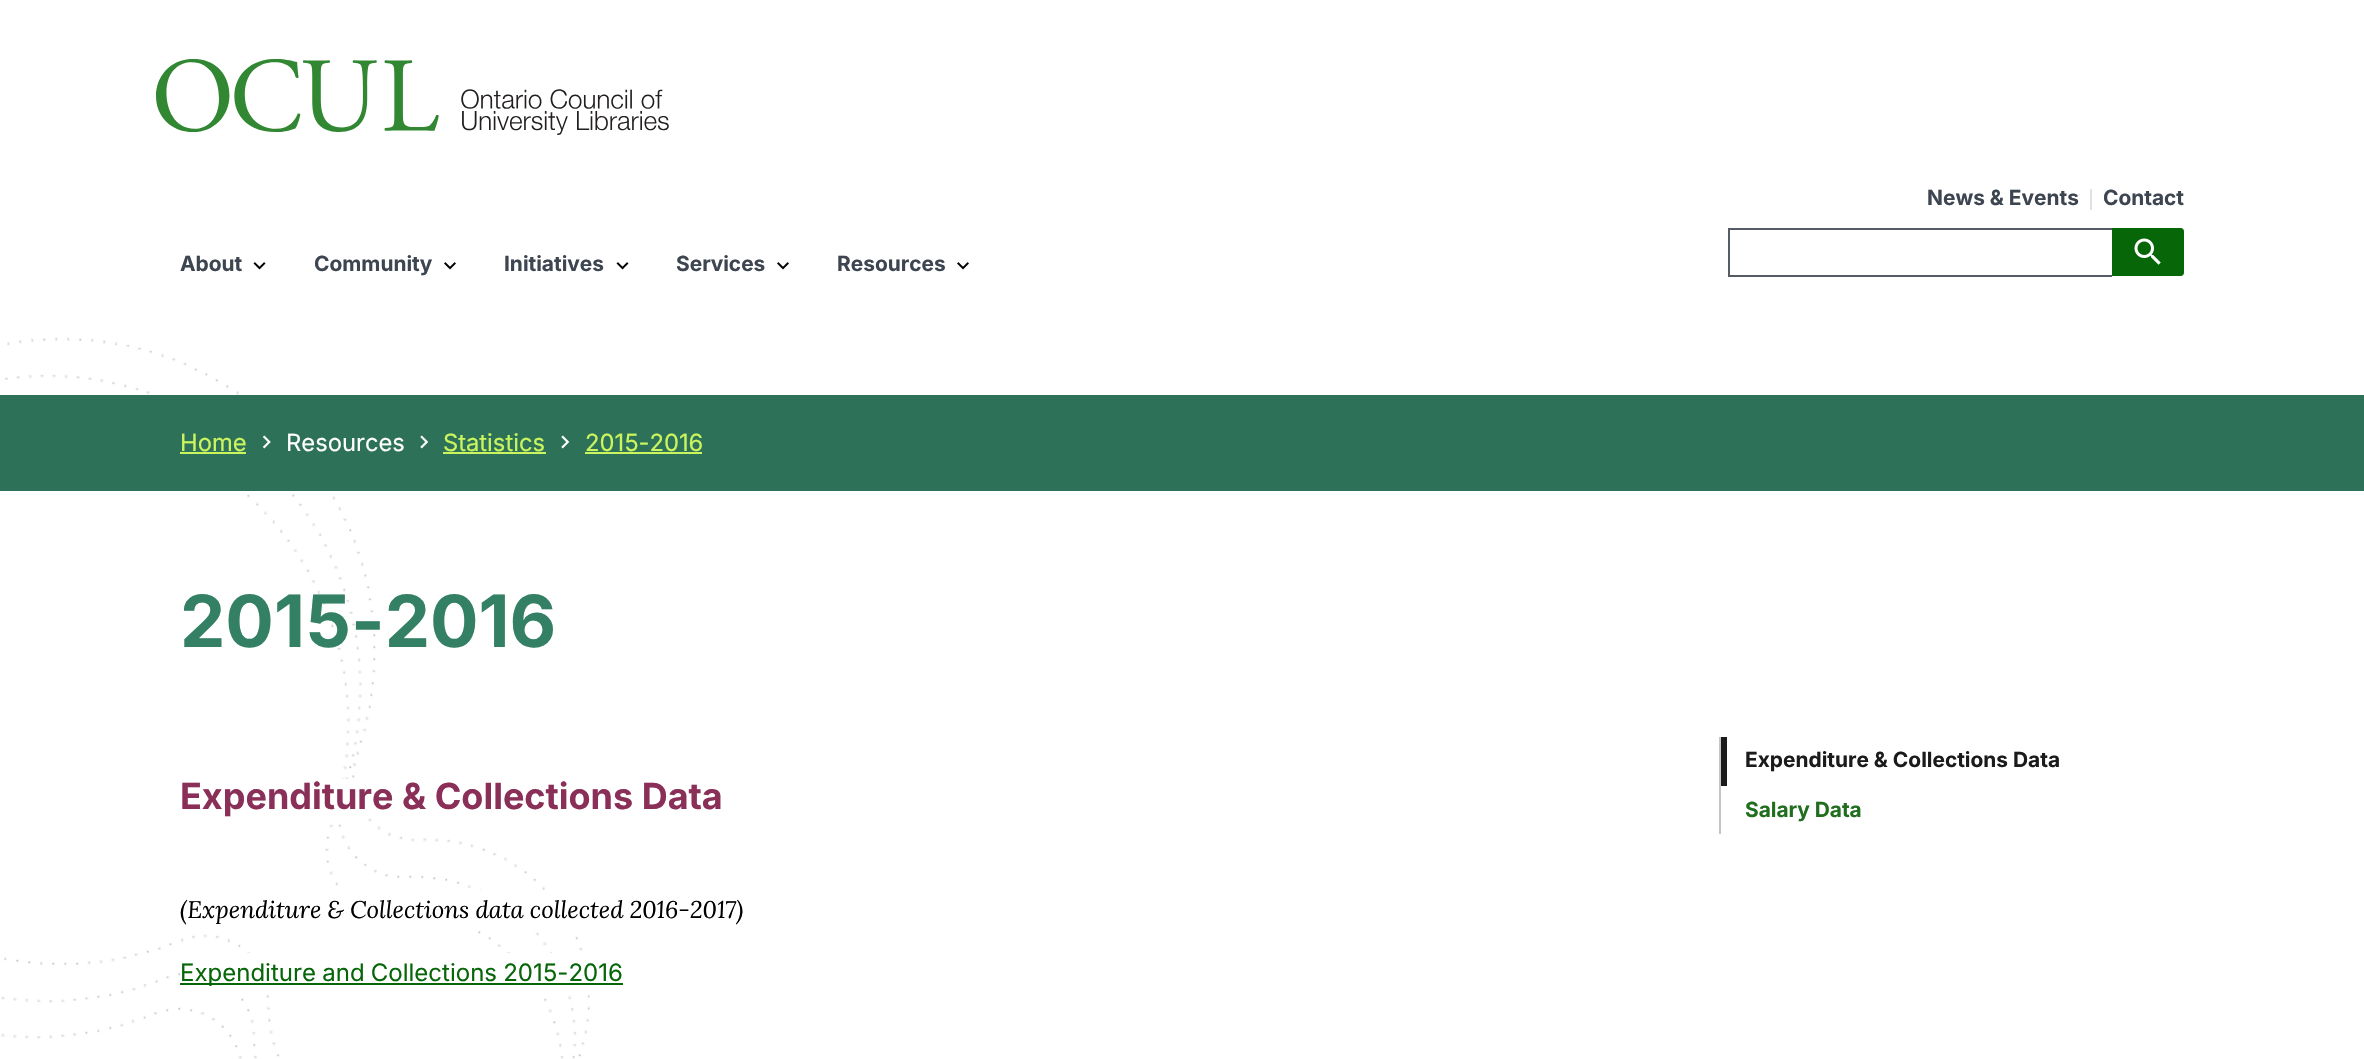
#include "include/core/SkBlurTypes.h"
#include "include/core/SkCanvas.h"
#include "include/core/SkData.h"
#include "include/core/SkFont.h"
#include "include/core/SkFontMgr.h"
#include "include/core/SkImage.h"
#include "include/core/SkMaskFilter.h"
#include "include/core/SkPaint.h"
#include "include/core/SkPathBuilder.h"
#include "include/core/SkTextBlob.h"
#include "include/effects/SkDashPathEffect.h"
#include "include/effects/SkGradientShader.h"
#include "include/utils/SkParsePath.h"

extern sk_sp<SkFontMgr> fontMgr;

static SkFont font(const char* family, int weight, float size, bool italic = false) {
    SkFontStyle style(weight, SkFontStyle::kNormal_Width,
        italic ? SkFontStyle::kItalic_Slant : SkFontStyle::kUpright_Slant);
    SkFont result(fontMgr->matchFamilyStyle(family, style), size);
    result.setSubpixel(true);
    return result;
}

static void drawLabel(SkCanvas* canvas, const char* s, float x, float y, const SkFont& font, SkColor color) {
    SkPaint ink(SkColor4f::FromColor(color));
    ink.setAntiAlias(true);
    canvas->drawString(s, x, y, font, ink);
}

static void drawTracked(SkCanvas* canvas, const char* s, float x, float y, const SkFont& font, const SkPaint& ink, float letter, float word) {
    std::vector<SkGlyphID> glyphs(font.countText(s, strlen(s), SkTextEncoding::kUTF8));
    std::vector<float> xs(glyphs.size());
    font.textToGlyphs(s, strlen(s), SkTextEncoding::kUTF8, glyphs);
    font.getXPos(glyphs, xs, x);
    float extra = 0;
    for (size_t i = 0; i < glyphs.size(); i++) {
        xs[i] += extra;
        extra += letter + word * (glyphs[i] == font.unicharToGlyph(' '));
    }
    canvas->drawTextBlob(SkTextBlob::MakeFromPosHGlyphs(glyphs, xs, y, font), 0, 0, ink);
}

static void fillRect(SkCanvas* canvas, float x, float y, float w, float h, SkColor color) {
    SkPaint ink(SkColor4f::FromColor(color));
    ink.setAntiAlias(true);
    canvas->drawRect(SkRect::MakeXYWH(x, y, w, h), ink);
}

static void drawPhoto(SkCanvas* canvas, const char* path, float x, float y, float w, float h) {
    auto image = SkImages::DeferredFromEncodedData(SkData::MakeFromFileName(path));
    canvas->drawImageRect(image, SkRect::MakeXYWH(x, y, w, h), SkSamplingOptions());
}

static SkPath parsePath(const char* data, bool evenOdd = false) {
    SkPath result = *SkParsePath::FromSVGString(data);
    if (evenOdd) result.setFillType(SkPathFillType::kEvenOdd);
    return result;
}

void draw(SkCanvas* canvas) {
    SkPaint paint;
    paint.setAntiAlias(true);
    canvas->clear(0xFFFFFFFF);
    drawPhoto(canvas, "assets/img1.png", 1, 337, 589, 722);
    drawPhoto(canvas, "assets/img2.png", 156, 59, 513, 76);
    SkFont font1 = font("Inter", 700, 20.9f);
    drawLabel(canvas, "News & Events", 1927, 205, font1, 0xFF3D4551);
    fillRect(canvas, 2090, 189, 2, 21, 0xFFDFE1E2);
    drawLabel(canvas, "Contact", 2103, 205, font1, 0xFF3D4551);
    fillRect(canvas, 1728, 228, 384, 2, 0xFF565C65);
    fillRect(canvas, 1728, 275, 384, 2, 0xFF565C65);
    fillRect(canvas, 1728, 228, 2, 48, 0xFF565C65);
    paint.setColor(0xFF066608);
    canvas->drawPath(parsePath("M2112 228H2181C2182.5 228 2184 229.5 2184 231V273C2184 274.5 2182.5 276 2181 276H2112Z"), paint);
    drawPhoto(canvas, "assets/img3.png", 2134, 238, 27, 27);
    drawLabel(canvas, "About", 180, 271, font1, 0xFF3D4551);
    drawPhoto(canvas, "assets/img4.png", 253, 262, 13, 8);
    drawLabel(canvas, "Community", 314, 271, font1, 0xFF3D4551);
    drawPhoto(canvas, "assets/img5.png", 444, 262, 12, 8);
    drawLabel(canvas, "Initiatives", 504, 271, font1, 0xFF3D4551);
    drawPhoto(canvas, "assets/img4.png", 616, 262, 13, 8);
    drawLabel(canvas, "Services", 676, 271, font1, 0xFF3D4551);
    drawPhoto(canvas, "assets/img5.png", 777, 262, 12, 8);
    drawLabel(canvas, "Resources", 837, 271, font1, 0xFF3D4551);
    drawPhoto(canvas, "assets/img5.png", 957, 262, 12, 8);
    fillRect(canvas, 0, 395, 2364, 96, 0xFF2E7159);
    SkFont font2 = font("Inter", 400, 23.75f);
    drawLabel(canvas, "Home", 180, 451, font2, 0xFFCAF55F);
    fillRect(canvas, 180, 452, 66, 2, 0xFFCAF55F);
    drawPhoto(canvas, "assets/img6.png", 262, 435, 9, 14);
    drawLabel(canvas, "Resources", 286, 451, font2, 0xFFFFFFFF);
    drawPhoto(canvas, "assets/img7.png", 420, 435, 9, 14);
    drawLabel(canvas, "Statistics", 443, 451, font2, 0xFFCAF55F);
    fillRect(canvas, 443, 452, 103, 2, 0xFFCAF55F);
    drawPhoto(canvas, "assets/img7.png", 561, 435, 9, 14);
    drawLabel(canvas, "2015-2016", 585, 451, font2, 0xFFCAF55F);
    fillRect(canvas, 585, 452, 117, 2, 0xFFCAF55F);
    SkFont font3 = font("Inter", 700, 72);
    drawLabel(canvas, "2015-2016", 180, 647, font3, 0xFF348064);
    fillRect(canvas, 333, 779, 32, 38, 0xFFFFFFFF);
    SkFont font4 = font("Inter", 700, 36);
    drawLabel(canvas, "Expenditure & Collections Data", 180, 809, font4, 0xFF8A2F58);
    fillRect(canvas, 342, 890, 232, 39, 0xFFFFFFFF);
    SkFont font5 = font("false", 400, 24, true);
    paint.setColor(0xFF000000);
    drawTracked(canvas, "(Expenditure & Collections data collected 2016-2017)", 180, 918, font5, paint, 0, -0.25f);
    fillRect(canvas, 180, 953, 410, 39, 0xFFFFFFFF);
    fillRect(canvas, 180, 983, 443, 2, 0xFF066608);
    SkFont font6 = font("Inter", 400, 24);
    paint.setColor(0xFF066608);
    drawTracked(canvas, "Expenditure and Collections 2015-2016", 180, 981, font6, paint, 0, -0.5f);
    fillRect(canvas, 1719, 737, 2, 97, 0xFFC6C6C6);
    fillRect(canvas, 1721, 737, 6, 49, 0xFF1B1B1B);
    drawLabel(canvas, "Expenditure & Collections Data", 1745, 767, font1, 0xFF1B1B1B);
    drawLabel(canvas, "Salary Data", 1745, 817, font1, 0xFF216E1F);
}
